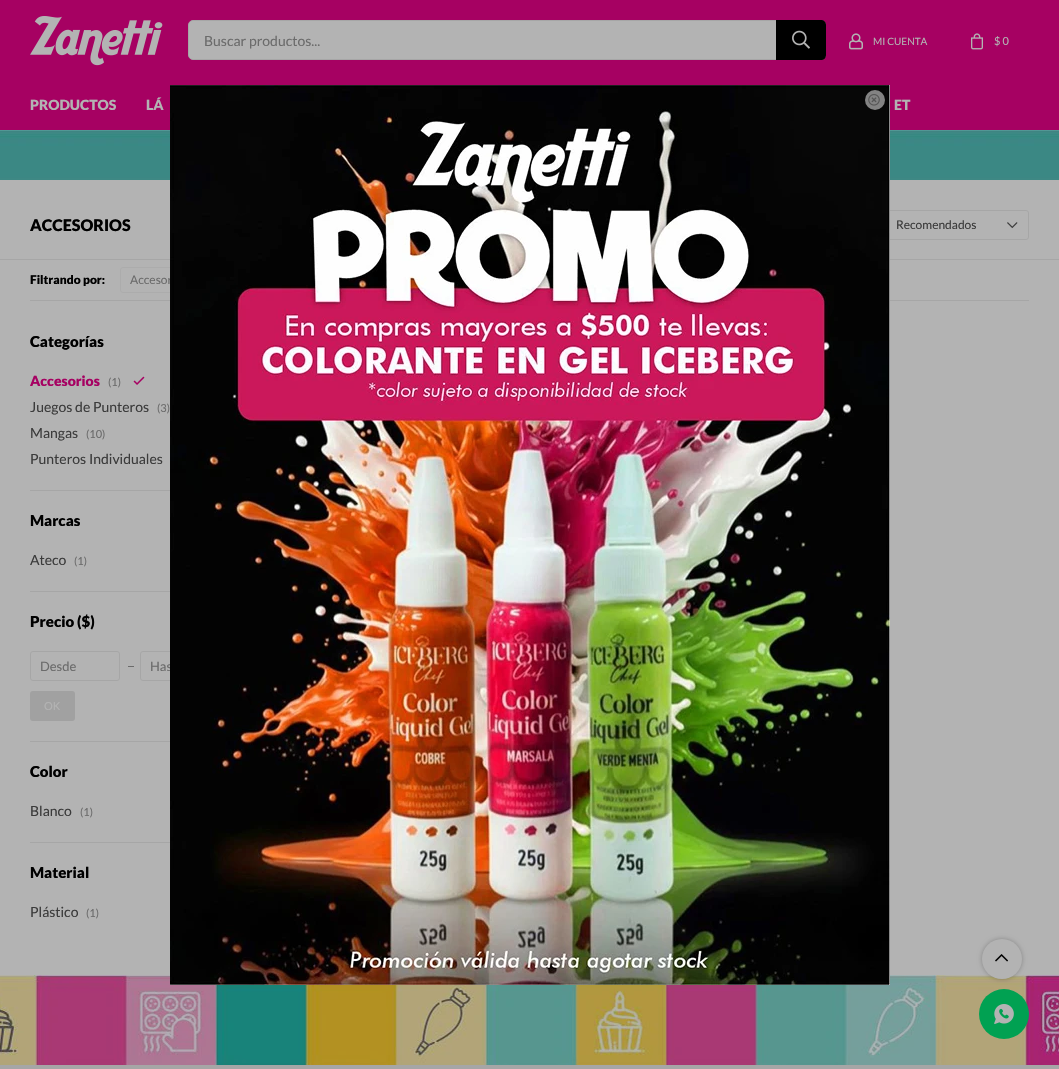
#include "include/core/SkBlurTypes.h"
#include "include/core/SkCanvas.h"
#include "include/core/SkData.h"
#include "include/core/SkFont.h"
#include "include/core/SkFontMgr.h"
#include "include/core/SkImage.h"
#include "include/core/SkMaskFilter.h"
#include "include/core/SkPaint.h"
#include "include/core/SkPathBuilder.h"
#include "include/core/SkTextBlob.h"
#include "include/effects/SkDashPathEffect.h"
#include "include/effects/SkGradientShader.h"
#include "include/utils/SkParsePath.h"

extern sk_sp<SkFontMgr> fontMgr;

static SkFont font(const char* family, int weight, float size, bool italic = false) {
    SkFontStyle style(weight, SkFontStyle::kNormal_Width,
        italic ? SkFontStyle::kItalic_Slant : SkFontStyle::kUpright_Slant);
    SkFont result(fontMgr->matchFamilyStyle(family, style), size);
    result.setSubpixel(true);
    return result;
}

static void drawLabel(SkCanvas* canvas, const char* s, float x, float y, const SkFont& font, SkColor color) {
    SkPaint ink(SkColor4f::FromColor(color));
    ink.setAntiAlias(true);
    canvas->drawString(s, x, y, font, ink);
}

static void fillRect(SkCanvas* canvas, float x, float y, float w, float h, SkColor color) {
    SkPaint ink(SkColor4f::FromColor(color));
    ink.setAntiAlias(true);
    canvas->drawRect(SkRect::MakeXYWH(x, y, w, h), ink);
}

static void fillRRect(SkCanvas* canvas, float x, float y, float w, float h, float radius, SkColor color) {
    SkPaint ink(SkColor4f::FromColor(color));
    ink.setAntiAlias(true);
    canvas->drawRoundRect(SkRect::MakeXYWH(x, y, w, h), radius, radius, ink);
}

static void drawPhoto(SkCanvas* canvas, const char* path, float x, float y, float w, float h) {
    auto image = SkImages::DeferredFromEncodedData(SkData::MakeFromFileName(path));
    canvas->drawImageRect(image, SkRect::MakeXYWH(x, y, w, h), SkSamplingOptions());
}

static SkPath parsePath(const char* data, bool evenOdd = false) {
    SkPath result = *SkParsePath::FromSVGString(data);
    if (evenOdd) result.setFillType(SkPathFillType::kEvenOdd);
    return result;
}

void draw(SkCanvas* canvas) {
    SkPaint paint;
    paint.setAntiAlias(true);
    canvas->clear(0xFFB3B3B3);
    fillRect(canvas, 0, 0, 1059, 130, 0xFFA60162);
    drawPhoto(canvas, "assets/img1.png", 30, 16, 133, 50);
    paint.setColor(0xFFB3B3B3);
    canvas->drawRoundRect(SkRect::MakeXYWH(188.5f, 20.5f, 637, 39), 4.5f, 4.5f, paint);
    paint.setStroke(true);
    paint.setStrokeWidth(1);
    paint.setColor(0xFFA6A6A6);
    canvas->drawRoundRect(SkRect::MakeXYWH(188.5f, 20.5f, 637, 39), 4.5f, 4.5f, paint);
    SkFont font1 = font("Lato", 400, 14);
    drawLabel(canvas, "Buscar productos...", 204, 46, font1, 0xFF6B6B6B);
    paint.setStroke(false);
    paint.setColor(0xFF000000);
    canvas->drawPath(parsePath("M776 20H821C824 20 826 22 826 25V55C826 58 824 60 821 60H776Z"), paint);
    drawPhoto(canvas, "assets/img2.png", 792, 30, 18, 19);
    drawPhoto(canvas, "assets/img3.png", 849, 33, 14, 17);
    SkFont font2 = font("Lato", 400, 10);
    drawLabel(canvas, "MI CUENTA", 873, 45, font2, 0xFFB3B3B3);
    drawPhoto(canvas, "assets/img4.png", 971, 33, 12, 17);
    SkFont font3 = font("Lato", 400, 11);
    drawLabel(canvas, "$ 0", 994, 45, font3, 0xFFB3B3B3);
    SkFont font4 = font("Lato", 900, 14);
    drawLabel(canvas, "PRODUCTOS", 30, 110, font4, 0xFFB3B3B3);
    drawLabel(canvas, "LÁ", 146, 110, font4, 0xFFB3B3B3);
    drawLabel(canvas, "ET", 894, 110, font4, 0xFFB3B3B3);
    drawPhoto(canvas, "assets/img5.png", 0, 130, 1059, 50);
    SkFont font5 = font("Lato", 900, 16);
    drawLabel(canvas, "ACCESORIOS", 30, 231, font5, 0xFF000000);
    drawPhoto(canvas, "assets/img6.png", 1007, 222, 11, 7);
    paint.setStroke(true);
    paint.setColor(0xFFA6A6A6);
    canvas->drawRoundRect(SkRect::MakeXYWH(829.5f, 210.5f, 199, 29), 2.5f, 2.5f, paint);
    SkFont font6 = font("Lato", 400, 12);
    drawLabel(canvas, "Recomendados", 896, 229, font6, 0xFF3B3B3B);
    fillRect(canvas, 0, 259, 1059, 1, 0xFFA6A6A6);
    fillRect(canvas, 30, 300, 999, 1, 0xFFA6A6A6);
    SkFont font7 = font("Lato", 900, 12);
    drawLabel(canvas, "Filtrando por:", 30, 284, font7, 0xFF000000);
    paint.setColor(0xFFACACAC);
    canvas->drawRoundRect(SkRect::MakeXYWH(120.5f, 267.5f, 89, 25), 2.5f, 2.5f, paint);
    drawLabel(canvas, "Accesor", 130, 284, font6, 0xFF6B6B6B);
    SkFont font8 = font("Lato", 900, 15);
    drawLabel(canvas, "Categorías", 30, 347, font8, 0xFF000000);
    drawLabel(canvas, "Accesorios", 30, 386, font4, 0xFFA60162);
    drawLabel(canvas, "(1)", 108, 386, font3, 0xFF6B6B6B);
    drawPhoto(canvas, "assets/img7.png", 133, 376, 12, 9);
    drawLabel(canvas, "Juegos de Punteros", 30, 412, font1, 0xFF3B3B3B);
    drawLabel(canvas, "(3)", 157, 412, font3, 0xFF6B6B6B);
    drawLabel(canvas, "Mangas", 30, 438, font1, 0xFF3B3B3B);
    drawLabel(canvas, "(10)", 86, 438, font3, 0xFF6B6B6B);
    drawLabel(canvas, "Punteros Individuales", 30, 464, font1, 0xFF3B3B3B);
    fillRect(canvas, 30, 490, 140, 1, 0xFFA6A6A6);
    drawLabel(canvas, "Marcas", 30, 526, font8, 0xFF000000);
    drawLabel(canvas, "Ateco", 30, 565, font1, 0xFF3B3B3B);
    drawLabel(canvas, "(1)", 74, 565, font3, 0xFF6B6B6B);
    fillRect(canvas, 30, 591, 140, 1, 0xFFA6A6A6);
    drawLabel(canvas, "Precio ($)", 30, 627, font8, 0xFF000000);
    paint.setColor(0xFFA6A6A6);
    canvas->drawRoundRect(SkRect::MakeXYWH(30.5f, 651.5f, 89, 29), 2.5f, 2.5f, paint);
    SkFont font9 = font("Lato", 400, 13);
    drawLabel(canvas, "Desde", 40, 671, font9, 0xFF6B6B6B);
    fillRect(canvas, 128, 666, 6, 1, 0xFF6B6B6B);
    canvas->drawRoundRect(SkRect::MakeXYWH(140.5f, 651.5f, 89, 29), 2.5f, 2.5f, paint);
    drawLabel(canvas, "Has", 150, 671, font9, 0xFF6B6B6B);
    fillRRect(canvas, 30, 691, 45, 30, 3, 0xFFA1A1A1);
    drawLabel(canvas, "OK", 44, 710, font3, 0xFFB3B3B3);
    fillRect(canvas, 30, 741, 140, 1, 0xFFA6A6A6);
    drawLabel(canvas, "Color", 30, 777, font8, 0xFF000000);
    drawLabel(canvas, "Blanco", 30, 816, font1, 0xFF3B3B3B);
    drawLabel(canvas, "(1)", 80, 816, font3, 0xFF6B6B6B);
    fillRect(canvas, 30, 842, 140, 1, 0xFFA6A6A6);
    drawLabel(canvas, "Material", 30, 878, font8, 0xFF000000);
    drawLabel(canvas, "Plástico", 30, 917, font1, 0xFF3B3B3B);
    drawLabel(canvas, "(1)", 86, 917, font3, 0xFF6B6B6B);
    drawPhoto(canvas, "assets/img9.png", 0, 975, 1059, 90);
    paint.setStroke(false);
    paint.setColor(0x40000000);
    paint.setMaskFilter(SkMaskFilter::MakeBlur(kNormal_SkBlurStyle, 2.5f));
    canvas->drawRoundRect(SkRect::MakeXYWH(982, 939, 40, 40), 20, 20, paint);
    paint.setMaskFilter(nullptr);
    paint.setColor(0xFFB3B3B3);
    canvas->drawCircle(1002, 959, 20, paint);
    drawPhoto(canvas, "assets/img8.png", 995, 954, 13, 8);
    fillRect(canvas, 0, 1065, 1059, 4, 0xFFA6A6A6);
    drawPhoto(canvas, "assets/img10.png", 170, 85, 720, 900);
    paint.setColor(0xFF838383);
    canvas->drawCircle(875, 100, 10, paint);
    drawPhoto(canvas, "assets/img11.png", 868, 94, 12, 12);
    paint.setColor(0xFF01A152);
    canvas->drawCircle(1004, 1014, 25, paint);
    drawPhoto(canvas, "assets/img12.png", 994, 1004, 20, 20);
}
